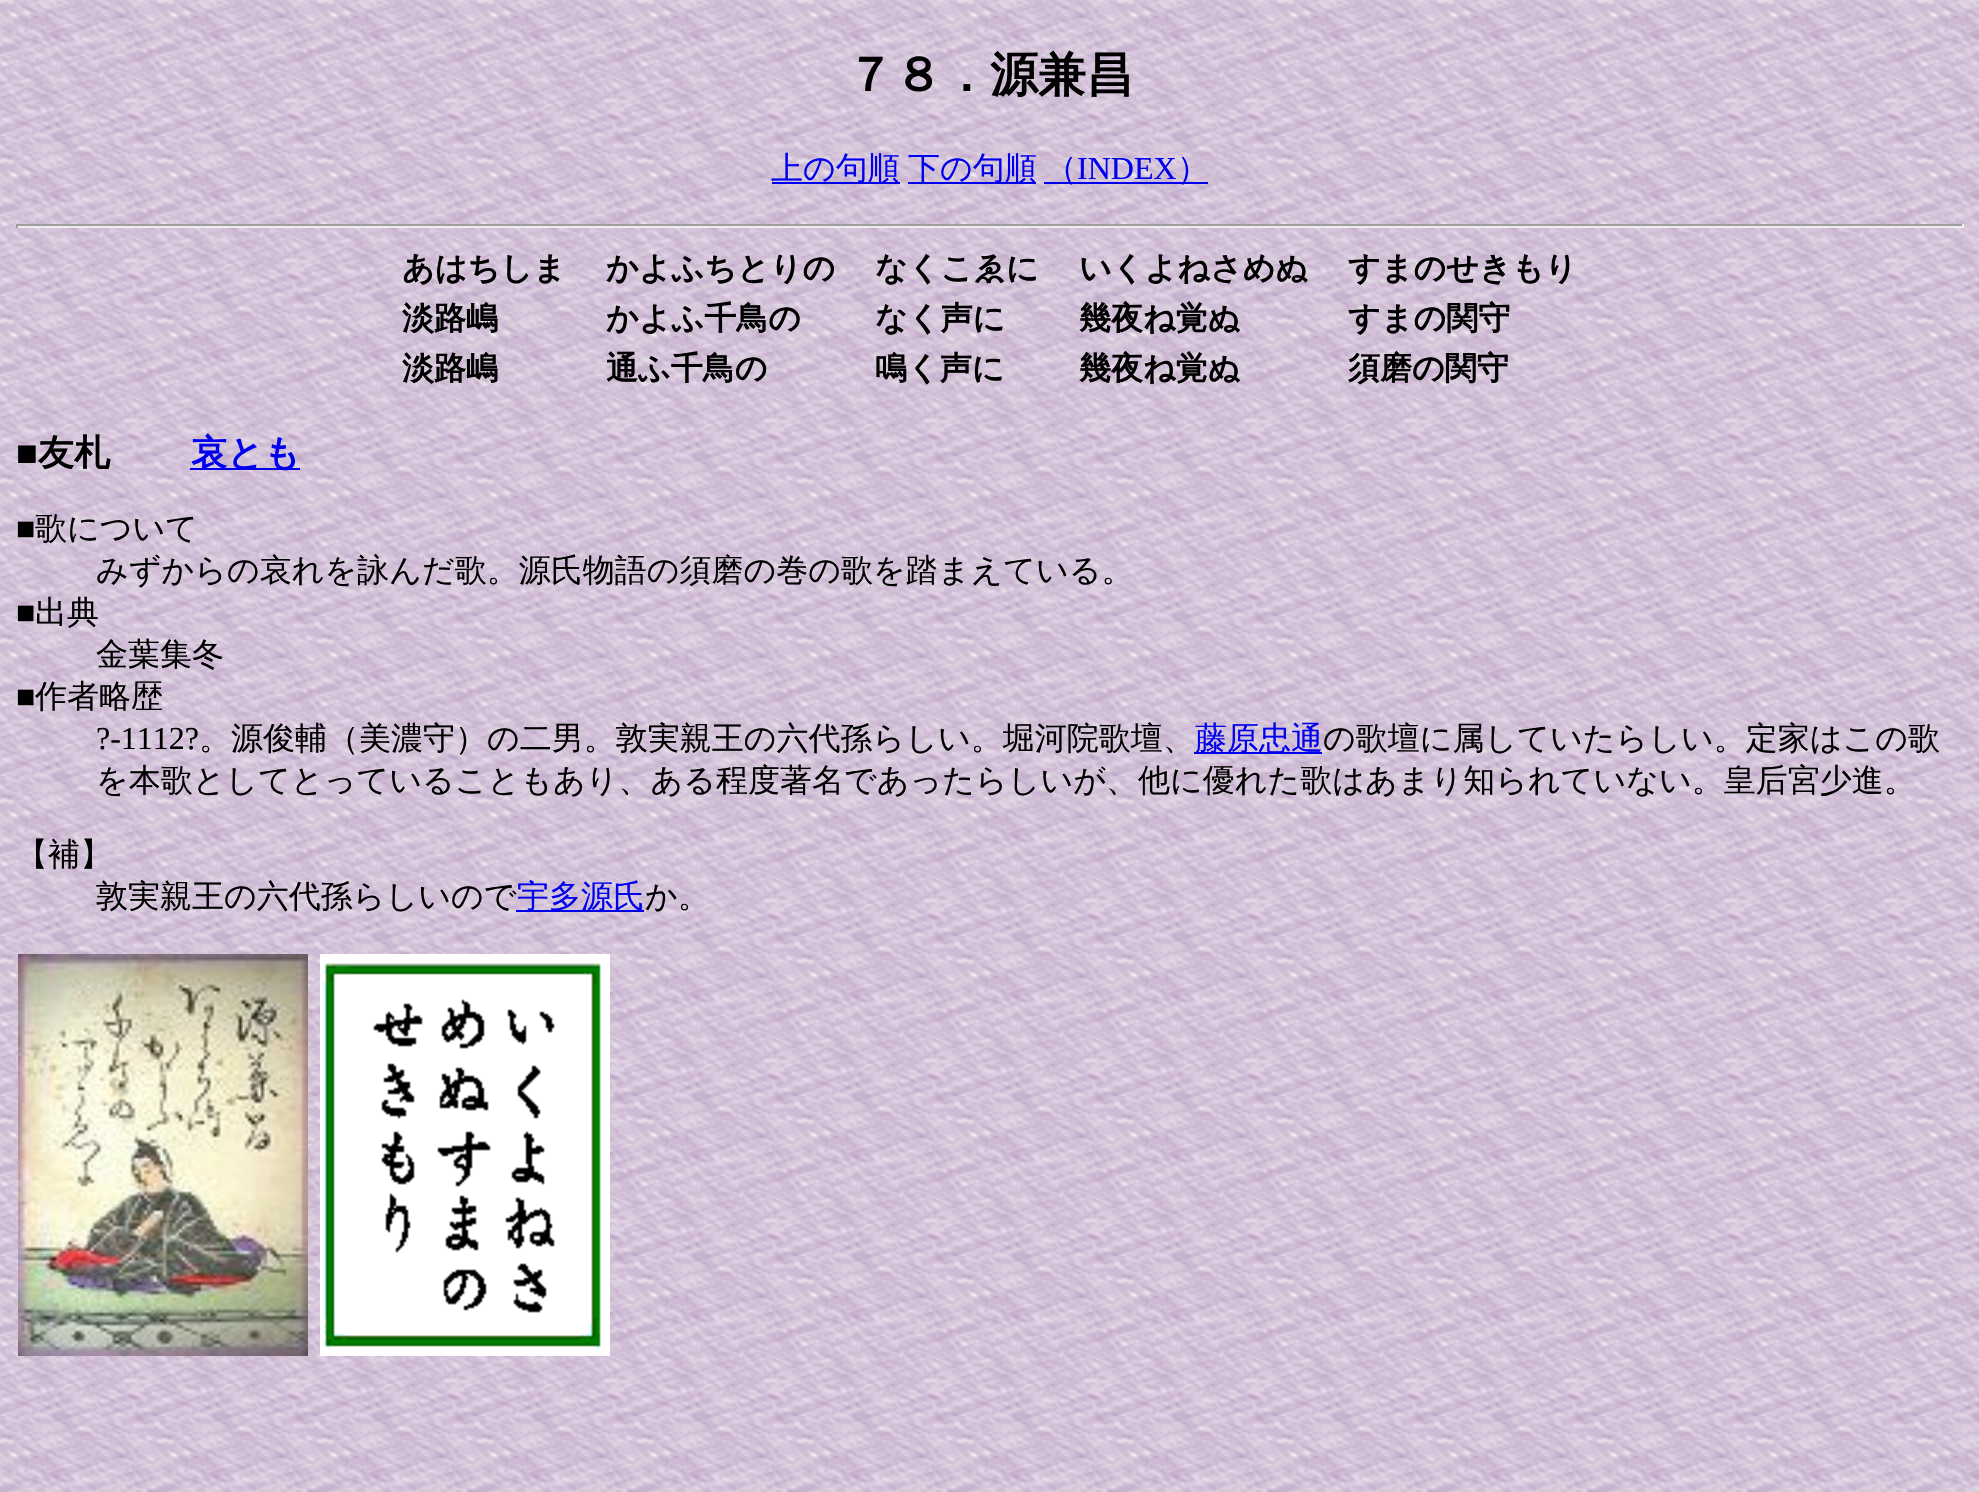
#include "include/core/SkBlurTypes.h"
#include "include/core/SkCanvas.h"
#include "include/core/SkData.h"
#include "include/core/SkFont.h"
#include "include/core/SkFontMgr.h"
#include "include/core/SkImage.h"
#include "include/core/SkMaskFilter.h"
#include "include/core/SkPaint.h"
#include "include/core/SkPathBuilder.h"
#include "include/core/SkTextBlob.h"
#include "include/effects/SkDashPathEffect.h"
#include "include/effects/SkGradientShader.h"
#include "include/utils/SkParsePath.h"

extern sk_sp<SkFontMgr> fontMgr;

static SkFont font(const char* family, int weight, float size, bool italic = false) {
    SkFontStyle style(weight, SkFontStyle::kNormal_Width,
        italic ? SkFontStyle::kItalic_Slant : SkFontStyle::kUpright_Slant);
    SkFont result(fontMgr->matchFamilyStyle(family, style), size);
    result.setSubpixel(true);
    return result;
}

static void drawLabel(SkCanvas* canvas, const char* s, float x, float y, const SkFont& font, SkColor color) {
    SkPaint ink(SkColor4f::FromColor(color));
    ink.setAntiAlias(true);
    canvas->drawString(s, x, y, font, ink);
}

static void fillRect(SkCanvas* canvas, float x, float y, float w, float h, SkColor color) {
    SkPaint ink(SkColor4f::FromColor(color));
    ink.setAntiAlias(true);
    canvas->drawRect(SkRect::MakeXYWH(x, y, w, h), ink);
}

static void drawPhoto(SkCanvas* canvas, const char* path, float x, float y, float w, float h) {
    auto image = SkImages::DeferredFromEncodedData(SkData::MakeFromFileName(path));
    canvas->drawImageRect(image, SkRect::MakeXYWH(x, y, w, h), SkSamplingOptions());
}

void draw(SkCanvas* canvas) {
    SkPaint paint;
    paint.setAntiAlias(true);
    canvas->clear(0xFFFFFFFF);
    drawPhoto(canvas, "assets/img1.png", 0, 0, 1979, 1492);
    SkFont font1 = font("WenQuanYi Zen Hei", 700, 48);
    drawLabel(canvas, "７８．源兼昌", 846, 91, font1, 0xFF000000);
    fillRect(canvas, 772, 182, 128, 2, 0xFF0000EE);
    SkFont font2 = font("WenQuanYi Zen Hei", 500, 32);
    drawLabel(canvas, "上の句順", 771, 179, font2, 0xFF0000EE);
    fillRect(canvas, 908, 182, 128, 2, 0xFF0000EE);
    drawLabel(canvas, "下の句順", 908, 179, font2, 0xFF0000EE);
    fillRect(canvas, 1044, 182, 164, 2, 0xFF0000EE);
    drawLabel(canvas, "（", 1045, 179, font2, 0xFF0000EE);
    SkFont font3 = font("Liberation Serif", 400, 32);
    drawLabel(canvas, "INDEX", 1077, 179, font3, 0xFF0000EE);
    drawLabel(canvas, "）", 1177, 179, font2, 0xFF0000EE);
    fillRect(canvas, 16, 224, 1948, 2, 0xFF9F9F9F);
    fillRect(canvas, 1962, 224, 2, 4, 0xFFEEEEEE);
    fillRect(canvas, 16, 226, 1948, 2, 0xFFEEEEEE);
    fillRect(canvas, 16, 224, 2, 4, 0xFF9F9F9F);
    SkFont font4 = font("WenQuanYi Zen Hei", 700, 32);
    drawLabel(canvas, "あはちしま", 402, 279, font4, 0xFF000000);
    drawLabel(canvas, "かよふちとりの", 606, 279, font4, 0xFF000000);
    drawLabel(canvas, "なくこゑに", 875, 279, font4, 0xFF000000);
    drawLabel(canvas, "いくよねさめぬ", 1079, 279, font4, 0xFF000000);
    drawLabel(canvas, "すまのせきもり", 1348, 279, font4, 0xFF000000);
    drawLabel(canvas, "淡路嶋", 402, 329, font4, 0xFF000000);
    drawLabel(canvas, "かよふ千鳥の", 606, 329, font4, 0xFF000000);
    drawLabel(canvas, "なく声に", 875, 329, font4, 0xFF000000);
    drawLabel(canvas, "幾夜ね覚ぬ", 1079, 329, font4, 0xFF000000);
    drawLabel(canvas, "すまの関守", 1348, 329, font4, 0xFF000000);
    drawLabel(canvas, "淡路嶋", 402, 379, font4, 0xFF000000);
    drawLabel(canvas, "通ふ千鳥の", 606, 379, font4, 0xFF000000);
    drawLabel(canvas, "鳴く声に", 875, 379, font4, 0xFF000000);
    drawLabel(canvas, "幾夜ね覚ぬ", 1079, 379, font4, 0xFF000000);
    drawLabel(canvas, "須磨の関守", 1348, 379, font4, 0xFF000000);
    SkFont font5 = font("Liberation Serif", 700, 36);
    drawLabel(canvas, "■", 16, 465, font5, 0xFF000000);
    SkFont font6 = font("WenQuanYi Zen Hei", 700, 36);
    drawLabel(canvas, "友札", 38, 465, font6, 0xFF000000);
    fillRect(canvas, 190, 468, 110, 2, 0xFF0000EE);
    drawLabel(canvas, "哀とも", 191, 465, font6, 0xFF0000EE);
    drawLabel(canvas, "■", 16, 539, font3, 0xFF000000);
    drawLabel(canvas, "歌について", 35, 539, font2, 0xFF000000);
    drawLabel(canvas, "みずからの哀れを詠んだ歌。源氏物語の須磨の巻の歌を踏まえている。", 96, 581, font2, 0xFF000000);
    drawLabel(canvas, "■", 16, 623, font3, 0xFF000000);
    drawLabel(canvas, "出典", 35, 623, font2, 0xFF000000);
    drawLabel(canvas, "金葉集冬", 96, 665, font2, 0xFF000000);
    drawLabel(canvas, "■", 16, 707, font3, 0xFF000000);
    drawLabel(canvas, "作者略歴", 35, 707, font2, 0xFF000000);
    drawLabel(canvas, "?-1112?", 96, 749, font3, 0xFF000000);
    drawLabel(canvas, "。源俊輔（美濃守）の二男。敦実親王の六代孫らしい。堀河院歌壇、", 199, 749, font2, 0xFF000000);
    fillRect(canvas, 1194, 752, 128, 2, 0xFF0000EE);
    drawLabel(canvas, "藤原忠通", 1195, 749, font2, 0xFF0000EE);
    drawLabel(canvas, "の歌壇に属していたらしい。定家はこの歌", 1323, 749, font2, 0xFF000000);
    drawLabel(canvas, "を本歌としてとっていることもあり、ある程度著名であったらしいが、他に優れた歌はあまり知られていない。皇后宮少進。", 96, 791, font2, 0xFF000000);
    drawLabel(canvas, "【補】", 16, 865, font2, 0xFF000000);
    drawLabel(canvas, "敦実親王の六代孫らしいので", 96, 907, font2, 0xFF000000);
    fillRect(canvas, 516, 910, 128, 2, 0xFF0000EE);
    drawLabel(canvas, "宇多源氏", 517, 907, font2, 0xFF0000EE);
    drawLabel(canvas, "か。", 645, 907, font2, 0xFF000000);
    drawPhoto(canvas, "assets/img2.png", 18, 954, 290, 402);
    drawPhoto(canvas, "assets/img3.png", 320, 954, 290, 402);
}
